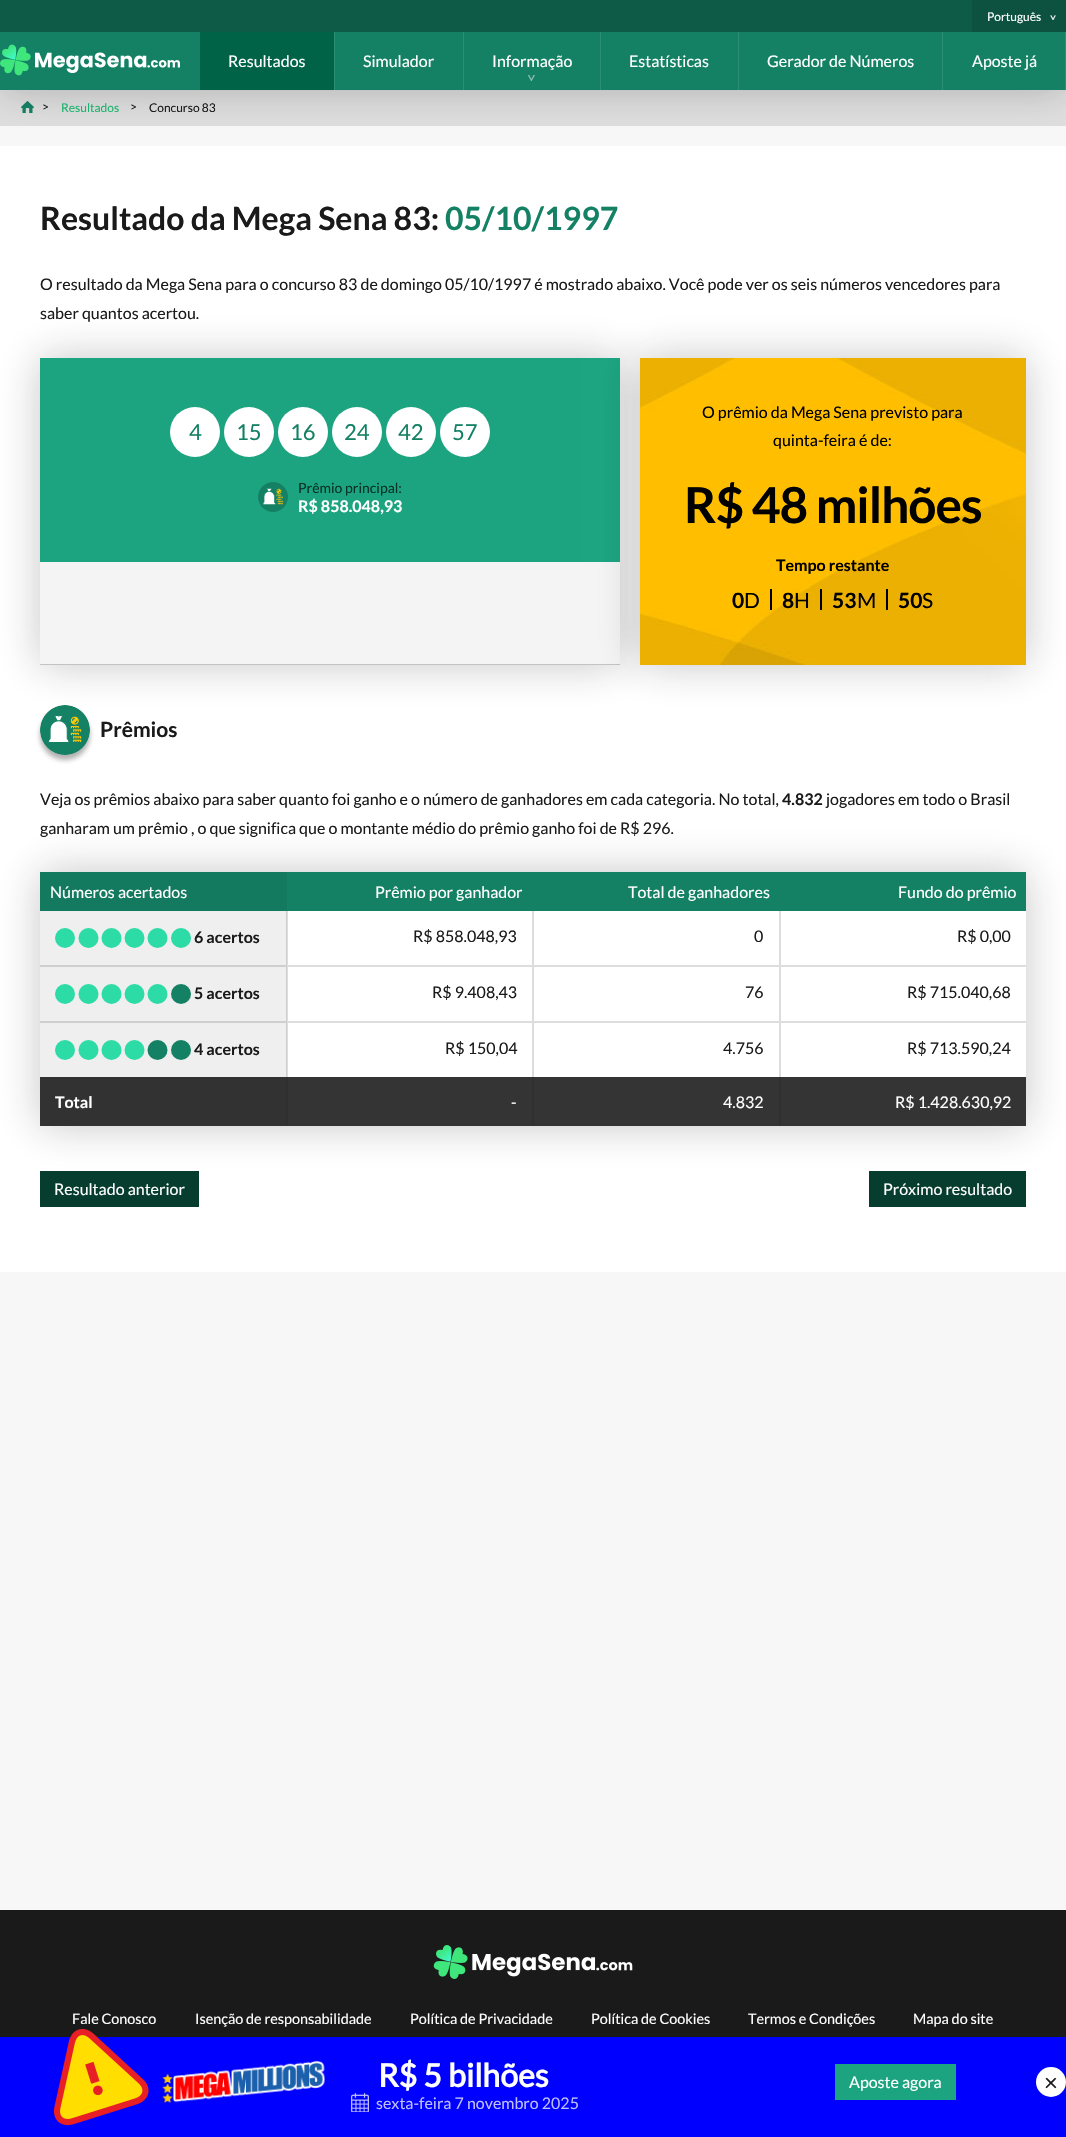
#include "include/core/SkBlurTypes.h"
#include "include/core/SkCanvas.h"
#include "include/core/SkData.h"
#include "include/core/SkFont.h"
#include "include/core/SkFontMgr.h"
#include "include/core/SkImage.h"
#include "include/core/SkMaskFilter.h"
#include "include/core/SkPaint.h"
#include "include/core/SkPathBuilder.h"
#include "include/core/SkTextBlob.h"
#include "include/effects/SkDashPathEffect.h"
#include "include/effects/SkGradientShader.h"
#include "include/utils/SkParsePath.h"

extern sk_sp<SkFontMgr> fontMgr;

static SkFont font(const char* family, int weight, float size, bool italic = false) {
    SkFontStyle style(weight, SkFontStyle::kNormal_Width,
        italic ? SkFontStyle::kItalic_Slant : SkFontStyle::kUpright_Slant);
    SkFont result(fontMgr->matchFamilyStyle(family, style), size);
    result.setSubpixel(true);
    return result;
}

static void drawLabel(SkCanvas* canvas, const char* s, float x, float y, const SkFont& font, SkColor color) {
    SkPaint ink(SkColor4f::FromColor(color));
    ink.setAntiAlias(true);
    canvas->drawString(s, x, y, font, ink);
}

static void drawTracked(SkCanvas* canvas, const char* s, float x, float y, const SkFont& font, const SkPaint& ink, float letter, float word) {
    std::vector<SkGlyphID> glyphs(font.countText(s, strlen(s), SkTextEncoding::kUTF8));
    std::vector<float> xs(glyphs.size());
    font.textToGlyphs(s, strlen(s), SkTextEncoding::kUTF8, glyphs);
    font.getXPos(glyphs, xs, x);
    float extra = 0;
    for (size_t i = 0; i < glyphs.size(); i++) {
        xs[i] += extra;
        extra += letter + word * (glyphs[i] == font.unicharToGlyph(' '));
    }
    canvas->drawTextBlob(SkTextBlob::MakeFromPosHGlyphs(glyphs, xs, y, font), 0, 0, ink);
}

static void fillRect(SkCanvas* canvas, float x, float y, float w, float h, SkColor color) {
    SkPaint ink(SkColor4f::FromColor(color));
    ink.setAntiAlias(true);
    canvas->drawRect(SkRect::MakeXYWH(x, y, w, h), ink);
}

static void drawPhoto(SkCanvas* canvas, const char* path, float x, float y, float w, float h) {
    auto image = SkImages::DeferredFromEncodedData(SkData::MakeFromFileName(path));
    canvas->drawImageRect(image, SkRect::MakeXYWH(x, y, w, h), SkSamplingOptions());
}

static SkPath parsePath(const char* data, bool evenOdd = false) {
    SkPath result = *SkParsePath::FromSVGString(data);
    if (evenOdd) result.setFillType(SkPathFillType::kEvenOdd);
    return result;
}

void draw(SkCanvas* canvas) {
    SkPaint paint;
    paint.setAntiAlias(true);
    canvas->clear(0xFFF7F7F7);
    fillRect(canvas, 0, 90, 1066, 36, 0xFFDEDEDE);
    drawPhoto(canvas, "assets/img2.png", 21, 101, 13, 12);
    fillRect(canvas, 0, 146, 1066, 1126, 0xFFFFFFFF);
    paint.setColor(0x401A1A1A);
    paint.setMaskFilter(SkMaskFilter::MakeBlur(kNormal_SkBlurStyle, 20));
    canvas->drawRect(SkRect::MakeXYWH(0, 0, 1066, 90), paint);
    paint.setMaskFilter(nullptr);
    fillRect(canvas, 0, 0, 972, 32, 0xFF0E5B47);
    fillRect(canvas, 972, 0, 94, 32, 0xFF0D5240);
    SkFont font1 = font("Lato", 400, 12);
    drawLabel(canvas, "Português", 987, 21, font1, 0xFFFFFFFF);
    canvas->save();
    canvas->rotate(90, 1049, 14);
    drawLabel(canvas, ">", 1049, 14, font1, 0xFFFFFFFF);
    canvas->restore();
    fillRect(canvas, 0, 32, 1065, 58, 0xFF148164);
    drawPhoto(canvas, "assets/img1.png", 0, 44, 180, 32);
    fillRect(canvas, 334, 32, 1, 58, 0xFF2C8E74);
    fillRect(canvas, 200, 32, 134, 58, 0xFF006348);
    SkFont font2 = font("Lato", 400, 16);
    drawLabel(canvas, "Resultados", 228, 67, font2, 0xFFFFFFFF);
    fillRect(canvas, 463, 32, 1, 58, 0xFF2C8E74);
    drawLabel(canvas, "Simulador", 363, 67, font2, 0xFFFFFFFF);
    fillRect(canvas, 600, 32, 1, 58, 0xFF2C8E74);
    drawLabel(canvas, "Informação", 492, 67, font2, 0xFFFFFFFF);
    canvas->save();
    canvas->rotate(90, 526, 73);
    drawLabel(canvas, ">", 526, 73, font2, 0xFF8AC0B2);
    canvas->restore();
    fillRect(canvas, 738, 32, 1, 58, 0xFF2C8E74);
    drawLabel(canvas, "Estatísticas", 629, 67, font2, 0xFFFFFFFF);
    fillRect(canvas, 942, 32, 1, 58, 0xFF2C8E74);
    drawLabel(canvas, "Gerador de Números", 767, 67, font2, 0xFFFFFFFF);
    fillRect(canvas, 1065, 32, 1, 58, 0xFF2C8E74);
    drawLabel(canvas, "Aposte já", 972, 67, font2, 0xFFFFFFFF);
    drawLabel(canvas, ">", 42, 111, font1, 0xFF1A1A1A);
    drawLabel(canvas, "Resultados", 61, 112, font1, 0xFF1BB36D);
    drawLabel(canvas, ">", 130, 111, font1, 0xFF1A1A1A);
    drawLabel(canvas, "Concurso 83", 149, 112, font1, 0xFF1A1A1A);
    SkFont font3 = font("Lato", 700, 32);
    drawLabel(canvas, "Resultado da Mega Sena 83:", 40, 230, font3, 0xFF1A1A1A);
    drawLabel(canvas, "05/10/1997", 445, 230, font3, 0xFF148164);
    drawLabel(canvas, "O resultado da Mega Sena para o concurso 83 de domingo 05/10/1997 é mostrado abaixo. Você pode ver os seis números vencedores para", 40, 290, font2, 0xFF1A1A1A);
    drawLabel(canvas, "saber quantos acertou.", 40, 319, font2, 0xFF1A1A1A);
    paint.setColor(0x591A1A1A);
    paint.setMaskFilter(SkMaskFilter::MakeBlur(kNormal_SkBlurStyle, 2.5f));
    canvas->drawRoundRect(SkRect::MakeXYWH(40, 710, 50, 50), 25, 25, paint);
    paint.setMaskFilter(nullptr);
    drawPhoto(canvas, "assets/img5.png", 40, 705, 50, 50);
    paint.setColor(0x401A1A1A);
    paint.setMaskFilter(SkMaskFilter::MakeBlur(kNormal_SkBlurStyle, 20));
    canvas->drawRect(SkRect::MakeXYWH(40, 358, 580, 307), paint);
    paint.setMaskFilter(nullptr);
    fillRect(canvas, 40, 358, 580, 204, 0xFF1CA480);
    paint.setColor(0xFFFFFFFF);
    canvas->drawCircle(195, 432, 25, paint);
    SkFont font4 = font("Lato", 400, 22);
    drawLabel(canvas, "4", 189, 440, font4, 0xFF148164);
    canvas->drawCircle(249, 432, 25, paint);
    drawLabel(canvas, "15", 236, 440, font4, 0xFF148164);
    canvas->drawCircle(303, 432, 25, paint);
    drawLabel(canvas, "16", 290, 440, font4, 0xFF148164);
    canvas->drawCircle(357, 432, 25, paint);
    drawLabel(canvas, "24", 344, 440, font4, 0xFF148164);
    canvas->drawCircle(411, 432, 25, paint);
    drawLabel(canvas, "42", 398, 440, font4, 0xFF148164);
    canvas->drawCircle(465, 432, 25, paint);
    drawLabel(canvas, "57", 452, 440, font4, 0xFF148164);
    drawPhoto(canvas, "assets/img3.png", 258, 482, 30, 30);
    SkFont font5 = font("Lato", 400, 14);
    drawLabel(canvas, "Prêmio principal:", 298, 493, font5, 0xFF083126);
    SkFont font6 = font("Lato", 700, 16);
    drawLabel(canvas, "R$ 858.048,93", 298, 512, font6, 0xFFFFFFFF);
    fillRect(canvas, 40, 562, 580, 102, 0xFFF4F4F4);
    fillRect(canvas, 40, 664, 580, 1, 0xFFC3C3C3);
    paint.setColor(0x401A1A1A);
    paint.setMaskFilter(SkMaskFilter::MakeBlur(kNormal_SkBlurStyle, 20));
    canvas->drawRect(SkRect::MakeXYWH(640, 358, 386, 307), paint);
    paint.setMaskFilter(nullptr);
    drawPhoto(canvas, "assets/img4.png", 640, 358, 386, 307);
    drawLabel(canvas, "O prêmio da Mega Sena previsto para", 702, 418, font2, 0xFF000000);
    drawLabel(canvas, "quinta-feira é de:", 773, 446, font2, 0xFF000000);
    SkFont font7 = font("Lato", 700, 49.5f);
    paint.setColor(0xFF000000);
    drawTracked(canvas, "R$ 48 milhões", 684, 523, font7, paint, -1, 0);
    drawLabel(canvas, "Tempo restante", 776, 571, font6, 0xFF000000);
    fillRect(canvas, 770, 589, 2, 21, 0xFF000000);
    SkFont font8 = font("Lato", 700, 21);
    drawLabel(canvas, "0", 732, 608, font8, 0xFF000000);
    SkFont font9 = font("Lato", 400, 21);
    drawLabel(canvas, "D", 744, 608, font9, 0xFF000000);
    fillRect(canvas, 820, 589, 2, 21, 0xFF000000);
    drawLabel(canvas, "8", 782, 608, font8, 0xFF000000);
    drawLabel(canvas, "H", 794, 608, font9, 0xFF000000);
    fillRect(canvas, 886, 589, 2, 21, 0xFF000000);
    drawLabel(canvas, "53", 832, 608, font8, 0xFF000000);
    drawLabel(canvas, "M", 857, 608, font9, 0xFF000000);
    drawLabel(canvas, "50", 898, 608, font8, 0xFF000000);
    drawLabel(canvas, "S", 922, 608, font9, 0xFF000000);
    drawLabel(canvas, "Prêmios", 100, 737, font8, 0xFF1A1A1A);
    drawLabel(canvas, "Veja os prêmios abaixo para saber quanto foi ganho e o número de ganhadores em cada categoria. No total,", 40, 805, font2, 0xFF1A1A1A);
    drawLabel(canvas, "4.832", 782, 805, font6, 0xFF1A1A1A);
    drawLabel(canvas, "jogadores em todo o Brasil", 826, 805, font2, 0xFF1A1A1A);
    drawLabel(canvas, "ganharam um prêmio , o que significa que o montante médio do prêmio ganho foi de R$ 296.", 40, 834, font2, 0xFF1A1A1A);
    canvas->save();
    canvas->clipPath(parsePath("M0 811H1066V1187H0ZM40 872H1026V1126H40Z", true), true);
    paint.setColor(0x401A1A1A);
    paint.setMaskFilter(SkMaskFilter::MakeBlur(kNormal_SkBlurStyle, 20));
    canvas->drawRect(SkRect::MakeXYWH(40, 872, 986, 254), paint);
    paint.setMaskFilter(nullptr);
    canvas->restore();
    fillRect(canvas, 287, 872, 739, 39, 0xFF148164);
    fillRect(canvas, 40, 872, 247, 39, 0xFF147A5F);
    drawLabel(canvas, "Números acertados", 50, 898, font2, 0xFFFFFFFF);
    drawLabel(canvas, "Prêmio por ganhador", 375, 898, font2, 0xFFFFFFFF);
    drawLabel(canvas, "Total de ganhadores", 628, 898, font2, 0xFFFFFFFF);
    drawLabel(canvas, "Fundo do prêmio", 898, 898, font2, 0xFFFFFFFF);
    fillRect(canvas, 40, 911, 247, 166, 0xFFEFEFEF);
    paint.setColor(0xFFCFCFCF);
    canvas->drawPath(parsePath("M287 911V966L286 965V911Z"), paint);
    paint.setColor(0x261A1A1A);
    canvas->drawPath(parsePath("M287 966H40V965H286Z"), paint);
    paint.setColor(0xFF2CDBA5);
    canvas->drawCircle(65, 938, 10, paint);
    canvas->drawCircle(88.5f, 938, 10, paint);
    canvas->drawCircle(111.5f, 938, 10, paint);
    canvas->drawCircle(134.5f, 938, 10, paint);
    canvas->drawCircle(157.5f, 938, 10, paint);
    canvas->drawCircle(181, 938, 10, paint);
    drawLabel(canvas, "6 acertos", 194, 943, font6, 0xFF1A1A1A);
    paint.setColor(0xFFDDDDDD);
    canvas->drawPath(parsePath("M533 911V966L532 965V911Z"), paint);
    paint.setColor(0x261A1A1A);
    canvas->drawPath(parsePath("M533 966H287L288 965H532Z"), paint);
    canvas->drawPath(parsePath("M287 966V911H288V965Z"), paint);
    drawLabel(canvas, "R$ 858.048,93", 413, 942, font2, 0xFF1A1A1A);
    paint.setColor(0xFFDDDDDD);
    canvas->drawPath(parsePath("M780 911V966L779 965V911Z"), paint);
    paint.setColor(0x261A1A1A);
    canvas->drawPath(parsePath("M780 966H533L534 965H779Z"), paint);
    canvas->drawPath(parsePath("M533 966V911H534V965Z"), paint);
    drawLabel(canvas, "0", 754, 942, font2, 0xFF1A1A1A);
    paint.setColor(0xFFDDDDDD);
    canvas->drawPath(parsePath("M1026 966H780L781 965H1026Z"), paint);
    paint.setColor(0x261A1A1A);
    canvas->drawPath(parsePath("M780 966V911H781V965Z"), paint);
    drawLabel(canvas, "R$ 0,00", 957, 942, font2, 0xFF1A1A1A);
    paint.setColor(0xFFCFCFCF);
    canvas->drawPath(parsePath("M40 966H287L286 967H40Z"), paint);
    paint.setColor(0x261A1A1A);
    canvas->drawPath(parsePath("M287 966V1022L286 1021V967Z"), paint);
    canvas->drawPath(parsePath("M287 1022H40V1021H286Z"), paint);
    paint.setColor(0xFF2CDBA5);
    canvas->drawCircle(65, 994, 10, paint);
    canvas->drawCircle(88.5f, 994, 10, paint);
    canvas->drawCircle(111.5f, 994, 10, paint);
    canvas->drawCircle(134.5f, 994, 10, paint);
    canvas->drawCircle(157.5f, 994, 10, paint);
    paint.setColor(0xFF148164);
    canvas->drawCircle(181, 994, 10, paint);
    drawLabel(canvas, "5 acertos", 194, 999, font6, 0xFF1A1A1A);
    paint.setStroke(true);
    paint.setStrokeWidth(1);
    paint.setColor(0xFFDDDDDD);
    canvas->drawRect(SkRect::MakeXYWH(287.5f, 966.5f, 245, 55), paint);
    drawLabel(canvas, "R$ 9.408,43", 432, 998, font2, 0xFF1A1A1A);
    canvas->drawRect(SkRect::MakeXYWH(533.5f, 966.5f, 246, 55), paint);
    drawLabel(canvas, "76", 745, 998, font2, 0xFF1A1A1A);
    paint.setStroke(false);
    canvas->drawPath(parsePath("M780 966H1026V967H781Z"), paint);
    canvas->drawPath(parsePath("M1026 1022H780L781 1021H1026Z"), paint);
    paint.setColor(0x261A1A1A);
    canvas->drawPath(parsePath("M780 1022V966L781 967V1021Z"), paint);
    drawLabel(canvas, "R$ 715.040,68", 907, 998, font2, 0xFF1A1A1A);
    paint.setColor(0xFFCFCFCF);
    canvas->drawPath(parsePath("M40 1022H287L286 1023H40Z"), paint);
    paint.setColor(0x261A1A1A);
    canvas->drawPath(parsePath("M287 1022V1077H286V1023Z"), paint);
    paint.setColor(0xFF2CDBA5);
    canvas->drawCircle(65, 1050, 10, paint);
    canvas->drawCircle(88.5f, 1050, 10, paint);
    canvas->drawCircle(111.5f, 1050, 10, paint);
    canvas->drawCircle(134.5f, 1050, 10, paint);
    paint.setColor(0xFF148164);
    canvas->drawCircle(157.5f, 1050, 10, paint);
    canvas->drawCircle(181, 1050, 10, paint);
    drawLabel(canvas, "4 acertos", 194, 1055, font6, 0xFF1A1A1A);
    paint.setColor(0xFFDDDDDD);
    canvas->drawPath(parsePath("M287 1022H533L532 1023H288Z"), paint);
    paint.setColor(0x261A1A1A);
    canvas->drawPath(parsePath("M533 1022V1077H532V1023Z"), paint);
    canvas->drawPath(parsePath("M287 1077V1022L288 1023V1077Z"), paint);
    drawLabel(canvas, "R$ 150,04", 445, 1054, font2, 0xFF1A1A1A);
    paint.setColor(0xFFDDDDDD);
    canvas->drawPath(parsePath("M533 1022H780L779 1023H534Z"), paint);
    paint.setColor(0x261A1A1A);
    canvas->drawPath(parsePath("M780 1022V1077H779V1023Z"), paint);
    canvas->drawPath(parsePath("M533 1077V1022L534 1023V1077Z"), paint);
    drawLabel(canvas, "4.756", 723, 1054, font2, 0xFF1A1A1A);
    paint.setColor(0xFFDDDDDD);
    canvas->drawPath(parsePath("M780 1022H1026V1023H781Z"), paint);
    paint.setColor(0x261A1A1A);
    canvas->drawPath(parsePath("M780 1077V1022L781 1023V1077Z"), paint);
    drawLabel(canvas, "R$ 713.590,24", 907, 1054, font2, 0xFF1A1A1A);
    fillRect(canvas, 288, 1077, 738, 49, 0xFF343434);
    fillRect(canvas, 40, 1077, 246, 49, 0xFF323232);
    fillRect(canvas, 286, 1077, 1, 49, 0xFF2E2E2E);
    drawLabel(canvas, "Total", 55, 1108, font6, 0xFFFFFFFF);
    fillRect(canvas, 532, 1077, 2, 49, 0xFF303030);
    fillRect(canvas, 287, 1077, 1, 49, 0xFF303030);
    drawLabel(canvas, "-", 511, 1108, font2, 0xFFFFFFFF);
    fillRect(canvas, 779, 1077, 2, 49, 0xFF303030);
    drawLabel(canvas, "4.832", 723, 1108, font2, 0xFFFFFFFF);
    drawLabel(canvas, "R$ 1.428.630,92", 895, 1108, font2, 0xFFFFFFFF);
    fillRect(canvas, 40, 1171, 159, 36, 0xFF073D2F);
    drawLabel(canvas, "Resultado anterior", 54, 1195, font2, 0xFFFFFFFF);
    fillRect(canvas, 869, 1171, 157, 36, 0xFF073D2F);
    drawLabel(canvas, "Próximo resultado", 883, 1195, font2, 0xFFFFFFFF);
    fillRect(canvas, 0, 1910, 1066, 127, 0xFF1A1A1A);
    drawPhoto(canvas, "assets/img6.png", 433, 1945, 200, 34);
    SkFont font10 = font("Lato", 400, 14.4f);
    drawLabel(canvas, "Fale Conosco", 72, 2024, font10, 0xFFFFFFFF);
    drawLabel(canvas, "Isenção de responsabilidade", 195, 2024, font10, 0xFFFFFFFF);
    drawLabel(canvas, "Política de Privacidade", 410, 2024, font10, 0xFFFFFFFF);
    drawLabel(canvas, "Política de Cookies", 591, 2024, font10, 0xFFFFFFFF);
    drawLabel(canvas, "Termos e Condições", 748, 2024, font10, 0xFFFFFFFF);
    drawLabel(canvas, "Mapa do site", 913, 2024, font10, 0xFFFFFFFF);
    fillRect(canvas, 0, 2037, 1066, 100, 0xFF0000FF);
    drawPhoto(canvas, "assets/img7.png", 53, 2028, 96, 98);
    drawPhoto(canvas, "assets/img8.png", 162, 2060, 163, 43);
    SkFont font11 = font("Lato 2", 700, 32);
    drawLabel(canvas, "R$ 5 bilhões", 378, 2087, font11, 0xFFFFFFFF);
    drawPhoto(canvas, "assets/img9.png", 351, 2093, 18, 19);
    drawLabel(canvas, "sexta-feira 7 novembro 2025", 376, 2109, font2, 0xFFBFBFFF);
    fillRect(canvas, 835, 2064, 121, 36, 0xFF1CA480);
    drawLabel(canvas, "Aposte agora", 849, 2088, font2, 0xFFFFFFFF);
    paint.setColor(0xFFFFFFFF);
    canvas->drawCircle(1051, 2082, 15, paint);
    SkFont font12 = font("Lato", 400, 24);
    drawLabel(canvas, "×", 1044, 2091, font12, 0xFF1A1A1A);
}
